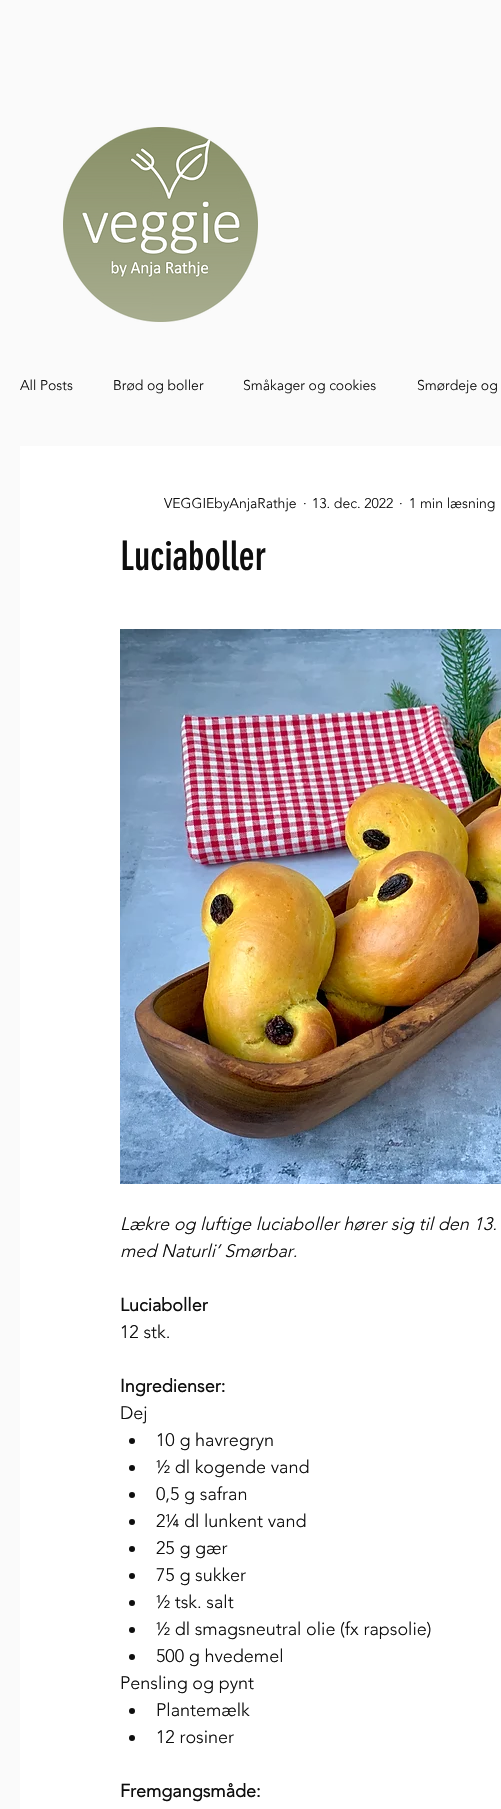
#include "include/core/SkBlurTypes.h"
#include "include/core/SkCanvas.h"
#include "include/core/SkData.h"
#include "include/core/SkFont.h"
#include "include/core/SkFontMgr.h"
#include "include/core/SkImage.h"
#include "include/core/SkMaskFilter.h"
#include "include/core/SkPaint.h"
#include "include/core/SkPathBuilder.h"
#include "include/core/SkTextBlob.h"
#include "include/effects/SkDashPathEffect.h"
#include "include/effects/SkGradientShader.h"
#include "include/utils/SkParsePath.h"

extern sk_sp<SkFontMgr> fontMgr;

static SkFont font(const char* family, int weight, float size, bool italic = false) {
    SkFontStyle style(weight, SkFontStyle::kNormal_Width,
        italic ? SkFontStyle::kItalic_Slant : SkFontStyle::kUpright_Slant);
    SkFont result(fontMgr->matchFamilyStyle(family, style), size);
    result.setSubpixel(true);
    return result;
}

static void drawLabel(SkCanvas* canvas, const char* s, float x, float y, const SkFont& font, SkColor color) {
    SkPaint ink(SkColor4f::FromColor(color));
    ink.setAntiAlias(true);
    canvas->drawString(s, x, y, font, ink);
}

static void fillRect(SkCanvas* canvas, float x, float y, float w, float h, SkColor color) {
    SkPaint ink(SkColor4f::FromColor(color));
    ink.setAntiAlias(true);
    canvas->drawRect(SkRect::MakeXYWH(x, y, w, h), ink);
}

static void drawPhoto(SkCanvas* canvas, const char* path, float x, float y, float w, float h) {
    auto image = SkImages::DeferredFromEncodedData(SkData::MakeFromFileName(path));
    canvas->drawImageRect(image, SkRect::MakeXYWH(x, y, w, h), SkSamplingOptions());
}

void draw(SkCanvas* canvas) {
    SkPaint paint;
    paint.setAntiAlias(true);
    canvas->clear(0xFFFAFAFA);
    drawPhoto(canvas, "assets/img1.png", 63, 127, 195, 195);
    SkFont font1 = font("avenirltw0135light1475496", 300, 14);
    drawLabel(canvas, "All Posts", 20, 390, font1, 0xFF0E0E0E);
    drawLabel(canvas, "Brød og boller", 113, 390, font1, 0xFF0E0E0E);
    drawLabel(canvas, "Småkager og cookies", 243, 390, font1, 0xFF0E0E0E);
    drawLabel(canvas, "Smørdeje og", 417, 390, font1, 0xFF0E0E0E);
    fillRect(canvas, 20, 446, 481, 1363, 0xFFFFFFFF);
    drawLabel(canvas, "VEGGIEbyAnjaRathje", 164, 508, font1, 0xFF0E0E0E);
    drawLabel(canvas, "·", 303, 508, font1, 0xFF0E0E0E);
    drawLabel(canvas, "13. dec. 2022", 312, 508, font1, 0xFF0E0E0E);
    drawLabel(canvas, "·", 399, 508, font1, 0xFF0E0E0E);
    drawLabel(canvas, "1 min læsning", 409, 508, font1, 0xFF0E0E0E);
    SkFont font2 = font("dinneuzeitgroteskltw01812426", 400, 40);
    drawLabel(canvas, "Luciaboller", 120, 570, font2, 0xFF0E0E0E);
    drawPhoto(canvas, "assets/img2.png", 120, 629, 381, 555);
    SkFont font3 = font("avenirltw0135light1475496", 300, 18, true);
    drawLabel(canvas, "Lækre og luftige luciaboller hører sig til den 13.", 120, 1230, font3, 0xFF0E0E0E);
    drawLabel(canvas, "med Naturli’ Smørbar.", 120, 1257, font3, 0xFF0E0E0E);
    SkFont font4 = font("avenirltw0135light1475496", 700, 18);
    drawLabel(canvas, "Luciaboller", 120, 1311, font4, 0xFF0E0E0E);
    SkFont font5 = font("avenirltw0135light1475496", 300, 18);
    drawLabel(canvas, "12 stk.", 120, 1338, font5, 0xFF0E0E0E);
    drawLabel(canvas, "Ingredienser:", 120, 1392, font4, 0xFF0E0E0E);
    drawLabel(canvas, "Dej", 120, 1419, font5, 0xFF0E0E0E);
    paint.setColor(0xFF0E0E0E);
    canvas->drawCircle(132, 1441, 3, paint);
    drawLabel(canvas, "10 g havregryn", 156, 1446, font5, 0xFF0E0E0E);
    canvas->drawCircle(132, 1468, 3, paint);
    drawLabel(canvas, "½ dl kogende vand", 156, 1473, font5, 0xFF0E0E0E);
    canvas->drawCircle(132, 1495, 3, paint);
    drawLabel(canvas, "0,5 g safran", 156, 1500, font5, 0xFF0E0E0E);
    canvas->drawCircle(132, 1522, 3, paint);
    drawLabel(canvas, "2¼ dl lunkent vand", 156, 1527, font5, 0xFF0E0E0E);
    canvas->drawCircle(132, 1549, 3, paint);
    drawLabel(canvas, "25 g gær", 156, 1554, font5, 0xFF0E0E0E);
    canvas->drawCircle(132, 1576, 3, paint);
    drawLabel(canvas, "75 g sukker", 156, 1581, font5, 0xFF0E0E0E);
    canvas->drawCircle(132, 1603, 3, paint);
    drawLabel(canvas, "½ tsk. salt", 156, 1608, font5, 0xFF0E0E0E);
    canvas->drawCircle(132, 1630, 3, paint);
    drawLabel(canvas, "½ dl smagsneutral olie (fx rapsolie)", 156, 1635, font5, 0xFF0E0E0E);
    canvas->drawCircle(132, 1657, 3, paint);
    drawLabel(canvas, "500 g hvedemel", 156, 1662, font5, 0xFF0E0E0E);
    drawLabel(canvas, "Pensling og pynt", 120, 1689, font5, 0xFF0E0E0E);
    canvas->drawCircle(132, 1711, 3, paint);
    drawLabel(canvas, "Plantemælk", 156, 1716, font5, 0xFF0E0E0E);
    canvas->drawCircle(132, 1738, 3, paint);
    drawLabel(canvas, "12 rosiner", 156, 1743, font5, 0xFF0E0E0E);
    drawLabel(canvas, "Fremgangsmåde:", 120, 1797, font4, 0xFF0E0E0E);
}
